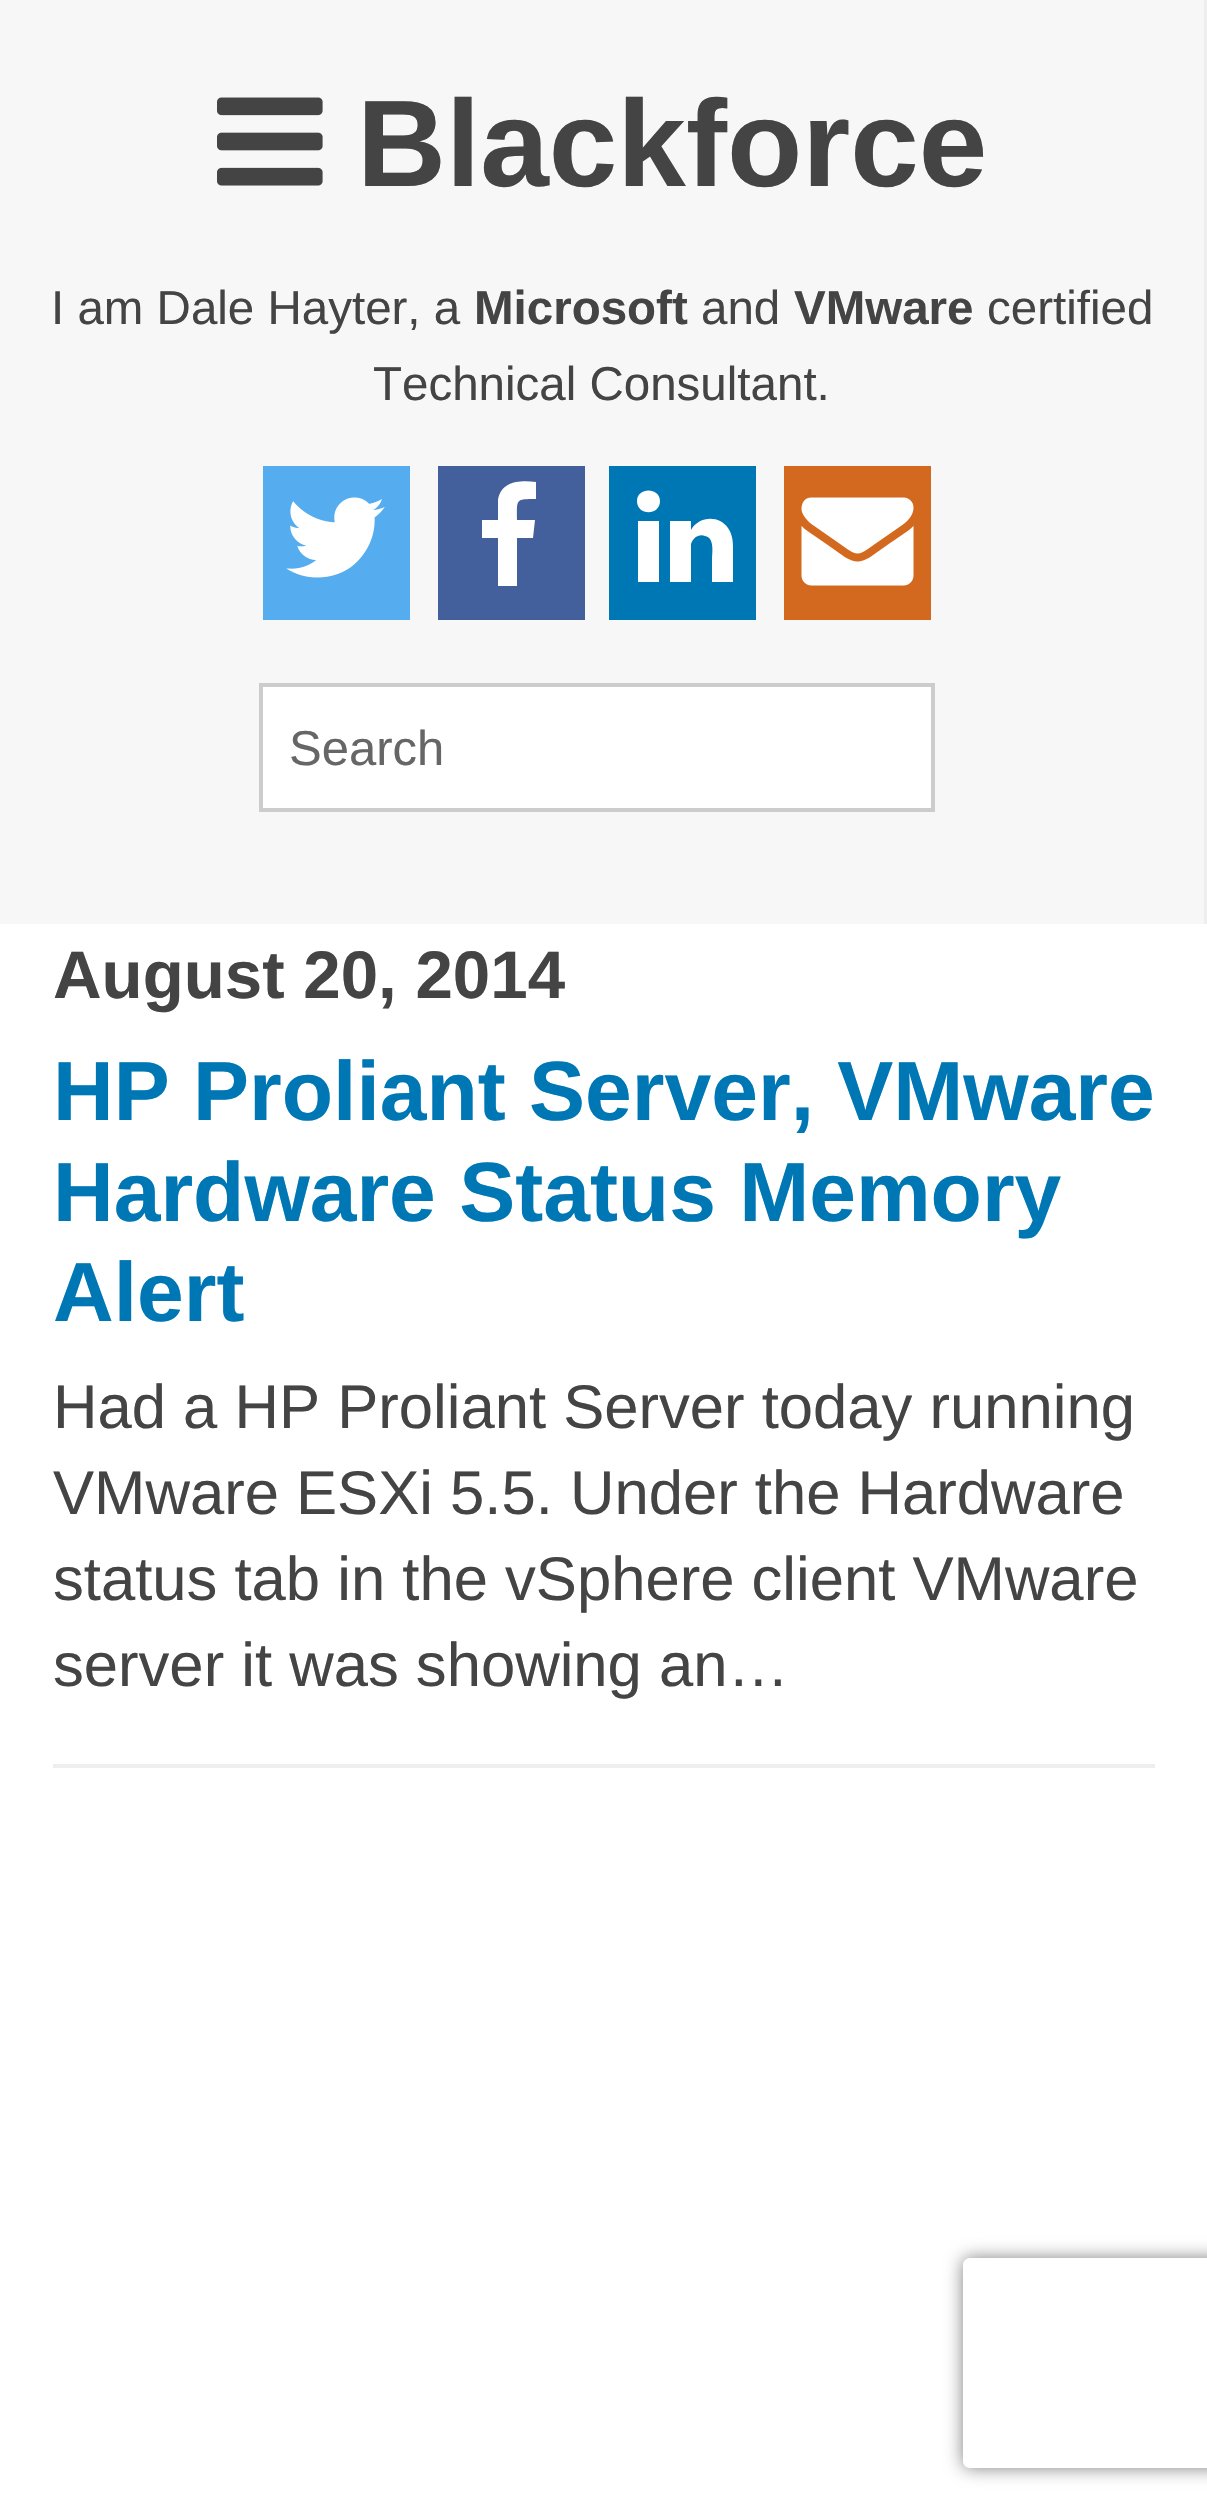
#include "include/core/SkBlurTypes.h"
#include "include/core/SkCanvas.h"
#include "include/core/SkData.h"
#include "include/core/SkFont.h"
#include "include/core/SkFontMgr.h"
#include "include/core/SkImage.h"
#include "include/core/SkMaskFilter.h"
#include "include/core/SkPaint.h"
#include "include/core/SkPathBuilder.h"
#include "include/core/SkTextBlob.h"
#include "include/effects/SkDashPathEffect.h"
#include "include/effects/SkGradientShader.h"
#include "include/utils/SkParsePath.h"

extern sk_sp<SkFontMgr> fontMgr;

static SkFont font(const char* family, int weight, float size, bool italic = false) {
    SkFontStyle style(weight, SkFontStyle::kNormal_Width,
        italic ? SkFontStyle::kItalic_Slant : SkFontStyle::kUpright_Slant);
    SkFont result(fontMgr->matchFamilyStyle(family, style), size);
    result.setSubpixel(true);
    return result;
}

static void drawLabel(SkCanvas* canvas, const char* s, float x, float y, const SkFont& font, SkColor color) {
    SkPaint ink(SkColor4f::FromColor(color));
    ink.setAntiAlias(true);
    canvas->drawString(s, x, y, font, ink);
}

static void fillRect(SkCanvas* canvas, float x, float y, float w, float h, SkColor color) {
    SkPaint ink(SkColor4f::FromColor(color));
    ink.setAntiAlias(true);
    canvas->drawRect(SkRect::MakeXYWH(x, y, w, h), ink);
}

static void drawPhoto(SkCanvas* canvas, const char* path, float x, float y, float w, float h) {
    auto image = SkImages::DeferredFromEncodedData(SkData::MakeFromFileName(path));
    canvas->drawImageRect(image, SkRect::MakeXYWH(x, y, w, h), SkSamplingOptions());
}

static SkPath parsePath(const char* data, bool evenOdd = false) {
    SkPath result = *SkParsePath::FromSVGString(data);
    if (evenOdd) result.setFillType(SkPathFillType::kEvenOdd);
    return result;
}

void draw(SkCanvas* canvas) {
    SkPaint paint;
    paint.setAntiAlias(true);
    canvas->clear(0xFFFFFFFF);
    fillRect(canvas, 0, 0, 1204, 924, 0xFFF7F7F7);
    fillRect(canvas, 1204, 0, 3, 924, 0xFFEEEEEE);
    drawPhoto(canvas, "assets/img1.png", 217, 97, 106, 89);
    SkFont font1 = font("Liberation Sans", 700, 123.25f);
    drawLabel(canvas, "Blackforce", 357, 186, font1, 0xFF444444);
    SkFont font2 = font("Liberation Sans", 400, 47.5f);
    drawLabel(canvas, "I am Dale Hayter, a", 51, 324, font2, 0xFF444444);
    SkFont font3 = font("Liberation Sans", 700, 47.5f);
    drawLabel(canvas, "Microsoft", 474, 324, font3, 0xFF444444);
    drawLabel(canvas, "and", 701, 324, font2, 0xFF444444);
    drawLabel(canvas, "VMware", 794, 324, font3, 0xFF444444);
    drawLabel(canvas, "certified", 987, 324, font2, 0xFF444444);
    drawLabel(canvas, "Technical Consultant.", 373, 400, font2, 0xFF444444);
    fillRect(canvas, 263, 466, 147, 154, 0xFF55ACEE);
    drawPhoto(canvas, "assets/img2.png", 286, 497, 99, 81);
    fillRect(canvas, 438, 466, 147, 154, 0xFF43609C);
    paint.setColor(0xFFFFFFFF);
    canvas->drawPath(parsePath("M536 482V499C515 499 517 499 517 520H535L533 538H517V586H498V538H482V520H498V500C501 481 520 480 536 482Z"), paint);
    fillRect(canvas, 609, 466, 147, 154, 0xFF0077B5);
    canvas->drawPath(parsePath("M659 521V582H638V521ZM660 501C660 516 637 516 637 501C637 487 660 487 660 501ZM733 547V582H712V560C712 553 715 538 705 536C703 535 700 535 698 536C695 537 692 540 691 544V582H670V521H691V530C699 516 719 515 728 528C732 534 733 540 733 547Z"), paint);
    fillRect(canvas, 784, 466, 147, 154, 0xFFD2691E);
    drawPhoto(canvas, "assets/img3.png", 801, 497, 113, 89);
    canvas->drawRect(SkRect::MakeXYWH(261, 685, 672, 125), paint);
    paint.setStroke(true);
    paint.setStrokeWidth(4);
    paint.setColor(0xFFCCCCCC);
    canvas->drawRect(SkRect::MakeXYWH(261, 685, 672, 125), paint);
    SkFont font4 = font("Liberation Sans", 400, 49);
    drawLabel(canvas, "Search", 289, 765, font4, 0xFF666666);
    fillRect(canvas, 53, 1764, 1102, 4, 0xFFEEEEEE);
    SkFont font5 = font("Liberation Sans", 700, 67.25f);
    drawLabel(canvas, "August 20, 2014", 53, 998, font5, 0xFF444444);
    SkFont font6 = font("Liberation Sans", 700, 84);
    drawLabel(canvas, "HP Proliant Server, VMware", 53, 1120, font6, 0xFF0077B5);
    drawLabel(canvas, "Hardware Status Memory", 53, 1221, font6, 0xFF0077B5);
    drawLabel(canvas, "Alert", 53, 1321, font6, 0xFF0077B5);
    SkFont font7 = font("Liberation Sans", 400, 61.6f);
    drawLabel(canvas, "Had a HP Proliant Server today running", 53, 1428, font7, 0xFF444444);
    drawLabel(canvas, "VMware ESXi 5.5. Under the Hardware", 53, 1514, font7, 0xFF444444);
    drawLabel(canvas, "status tab in the vSphere client VMware", 53, 1600, font7, 0xFF444444);
    drawLabel(canvas, "server it was showing an…", 53, 1686, font7, 0xFF444444);
    canvas->save();
    canvas->clipPath(parsePath("M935 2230H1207V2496H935ZM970 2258H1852C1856 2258 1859 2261 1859 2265V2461C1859 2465 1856 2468 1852 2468H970C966 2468 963 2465 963 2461V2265C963 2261 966 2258 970 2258Z", true), true);
    paint.setStroke(false);
    paint.setColor(0xFF808080);
    paint.setMaskFilter(SkMaskFilter::MakeBlur(kNormal_SkBlurStyle, 9));
    canvas->drawRoundRect(SkRect::MakeXYWH(963, 2258, 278, 210), 7, 7, paint);
    paint.setMaskFilter(nullptr);
    canvas->restore();
}
